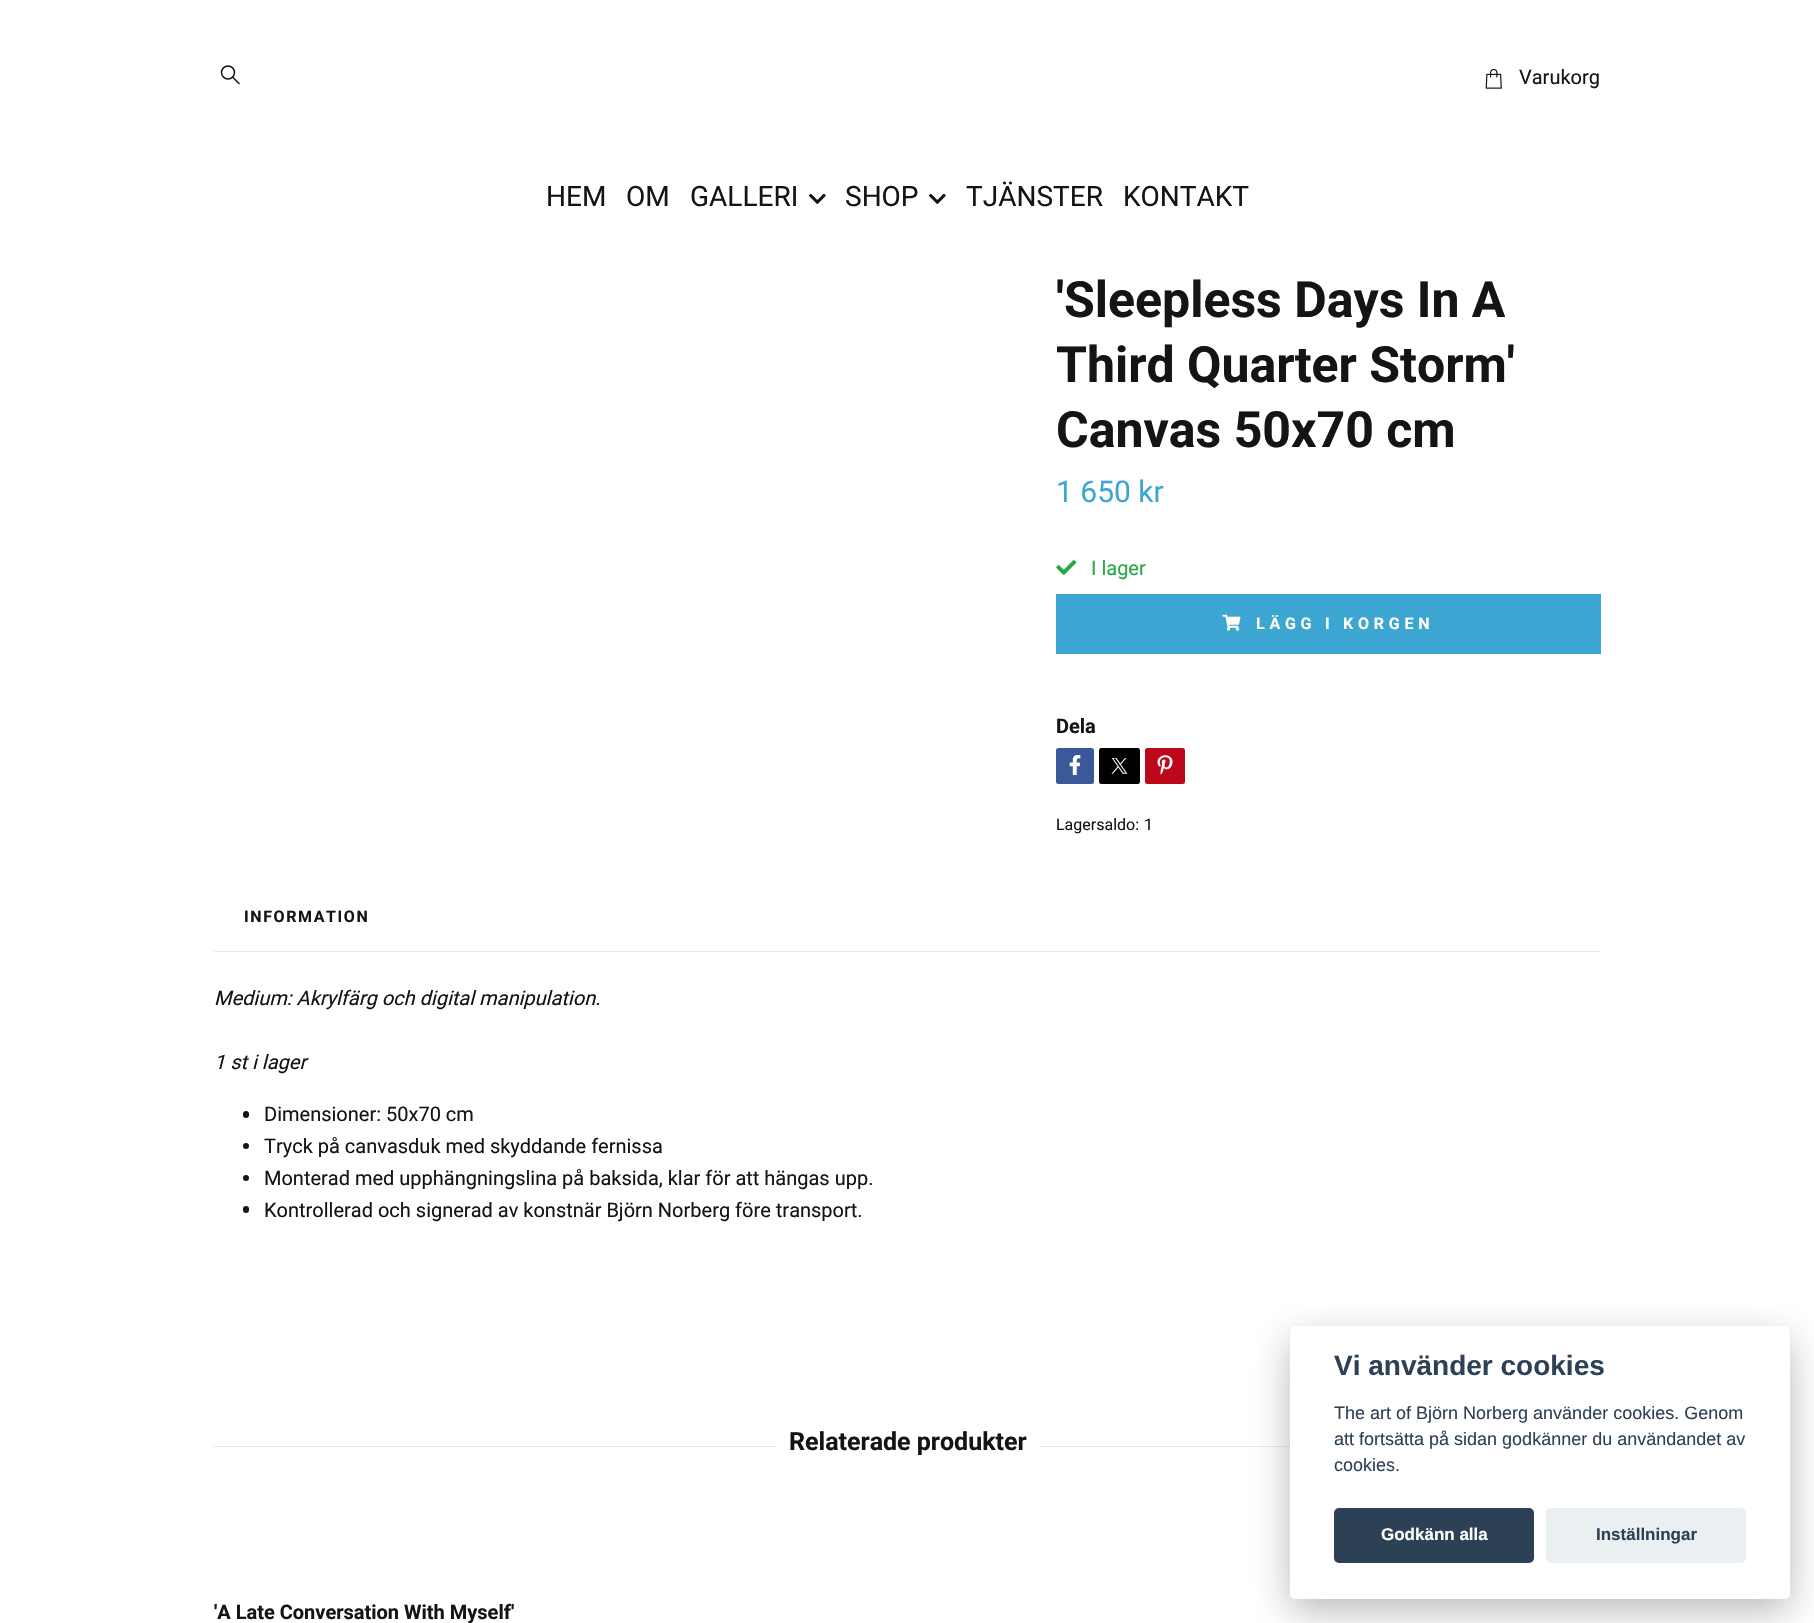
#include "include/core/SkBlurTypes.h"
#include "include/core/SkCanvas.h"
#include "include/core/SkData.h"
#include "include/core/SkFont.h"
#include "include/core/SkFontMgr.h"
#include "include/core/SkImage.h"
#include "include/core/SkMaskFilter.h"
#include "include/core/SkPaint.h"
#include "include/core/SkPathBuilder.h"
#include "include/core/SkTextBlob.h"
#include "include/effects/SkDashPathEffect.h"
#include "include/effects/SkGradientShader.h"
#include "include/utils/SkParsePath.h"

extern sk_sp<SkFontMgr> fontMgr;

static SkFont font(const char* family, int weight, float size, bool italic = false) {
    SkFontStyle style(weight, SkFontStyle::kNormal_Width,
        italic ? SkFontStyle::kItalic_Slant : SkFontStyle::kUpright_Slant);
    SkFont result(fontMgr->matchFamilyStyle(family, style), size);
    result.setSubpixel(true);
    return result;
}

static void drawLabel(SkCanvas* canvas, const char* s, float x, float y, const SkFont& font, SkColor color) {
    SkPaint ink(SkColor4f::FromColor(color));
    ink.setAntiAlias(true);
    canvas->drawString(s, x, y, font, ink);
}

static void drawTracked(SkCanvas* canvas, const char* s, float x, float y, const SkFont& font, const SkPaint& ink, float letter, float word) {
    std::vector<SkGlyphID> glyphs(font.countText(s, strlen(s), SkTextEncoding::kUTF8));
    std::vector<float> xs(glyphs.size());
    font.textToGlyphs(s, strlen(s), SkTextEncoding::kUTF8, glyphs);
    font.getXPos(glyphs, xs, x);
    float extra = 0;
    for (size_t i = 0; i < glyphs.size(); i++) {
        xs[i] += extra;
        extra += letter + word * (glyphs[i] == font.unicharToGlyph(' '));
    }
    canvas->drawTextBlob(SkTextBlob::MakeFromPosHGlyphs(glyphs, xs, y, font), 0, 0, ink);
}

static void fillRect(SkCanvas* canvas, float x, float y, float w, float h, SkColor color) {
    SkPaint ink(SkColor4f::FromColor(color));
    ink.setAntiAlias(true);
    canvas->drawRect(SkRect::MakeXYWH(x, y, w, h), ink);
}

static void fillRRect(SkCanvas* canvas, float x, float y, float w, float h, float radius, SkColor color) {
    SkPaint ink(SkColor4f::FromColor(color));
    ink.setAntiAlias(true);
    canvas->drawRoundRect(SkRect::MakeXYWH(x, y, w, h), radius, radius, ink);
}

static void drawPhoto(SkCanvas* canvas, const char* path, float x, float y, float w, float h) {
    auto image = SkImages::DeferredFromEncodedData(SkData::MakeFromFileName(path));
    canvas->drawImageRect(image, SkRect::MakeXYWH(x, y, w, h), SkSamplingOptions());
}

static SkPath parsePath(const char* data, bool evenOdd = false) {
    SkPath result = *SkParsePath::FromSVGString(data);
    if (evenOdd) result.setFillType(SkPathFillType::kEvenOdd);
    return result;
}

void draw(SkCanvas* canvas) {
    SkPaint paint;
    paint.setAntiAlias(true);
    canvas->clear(0xFFFFFFFF);
    paint.setStroke(true);
    paint.setStrokeWidth(1.5f);
    paint.setStrokeCap(SkPaint::kRound_Cap);
    paint.setStrokeJoin(SkPaint::kRound_Join);
    paint.setColor(0xFF141414);
    canvas->drawPath(parsePath("M232.5 77L239 83.5"), paint);
    paint.setStrokeCap(SkPaint::kButt_Cap);
    paint.setStrokeJoin(SkPaint::kMiter_Join);
    canvas->drawCircle(228, 72.5f, 6.5f, paint);
    drawPhoto(canvas, "assets/img1.png", 1485, 69, 17, 20);
    SkFont font1 = font("Roboto", 400, 20);
    drawLabel(canvas, "Varukorg", 1519, 84, font1, 0xFF141414);
    SkFont font2 = font("Roboto", 400, 28);
    drawLabel(canvas, "HEM", 546, 206, font2, 0xFF141414);
    drawLabel(canvas, "OM", 626, 206, font2, 0xFF141414);
    drawLabel(canvas, "GALLERI", 690, 206, font2, 0xFF141414);
    drawPhoto(canvas, "assets/img2.png", 809, 193, 17, 11);
    drawLabel(canvas, "SHOP", 845, 206, font2, 0xFF141414);
    drawPhoto(canvas, "assets/img2.png", 929, 193, 17, 11);
    drawLabel(canvas, "TJÄNSTER", 966, 206, font2, 0xFF141414);
    drawLabel(canvas, "KONTAKT", 1123, 206, font2, 0xFF141414);
    SkFont font3 = font("Roboto", 700, 50);
    drawLabel(canvas, "'Sleepless Days In A", 1056, 317, font3, 0xFF141414);
    drawLabel(canvas, "Third Quarter Storm'", 1056, 382, font3, 0xFF141414);
    drawLabel(canvas, "Canvas 50x70 cm", 1056, 447, font3, 0xFF141414);
    SkFont font4 = font("Roboto", 400, 30);
    drawLabel(canvas, "1 650 kr", 1056, 502, font4, 0xFF3DA5D1);
    drawPhoto(canvas, "assets/img3.png", 1056, 560, 21, 15);
    drawLabel(canvas, "I lager", 1091, 575, font1, 0xFF28A745);
    fillRect(canvas, 1056, 594, 545, 60, 0xFF3DA5D1);
    drawPhoto(canvas, "assets/img4.png", 1222, 614, 19, 17);
    SkFont font5 = font("Roboto", 700, 16);
    paint.setStroke(false);
    paint.setColor(0xFFFFFFFA);
    drawTracked(canvas, "LÄGG I KORGEN", 1256, 629, font5, paint, 4.75f, 0);
    SkFont font6 = font("Roboto", 700, 20);
    drawLabel(canvas, "Dela", 1056, 733, font6, 0xFF141414);
    fillRRect(canvas, 1056, 748, 38, 36, 2.5f, 0xFF3B5998);
    drawPhoto(canvas, "assets/img5.png", 1069, 755, 12, 20);
    fillRRect(canvas, 1099, 748, 41, 36, 2.5f, 0xFF000000);
    fillRRect(canvas, 1145, 748, 40, 36, 2.5f, 0xFFBD081C);
    drawPhoto(canvas, "assets/img6.png", 1157, 755, 16, 20);
    drawPhoto(canvas, "assets/img7.png", 1111, 758, 17, 16);
    SkFont font7 = font("Roboto", 400, 16);
    drawLabel(canvas, "Lagersaldo:", 1056, 830, font7, 0xFF141414);
    drawLabel(canvas, "1", 1144, 830, font7, 0xFF141414);
    fillRect(canvas, 214, 951, 1387, 1, 0xFFE9E9E9);
    paint.setColor(0xFF141414);
    drawTracked(canvas, "INFORMATION", 244, 922, font5, paint, 1.6f, 0);
    SkFont font8 = font("Roboto", 400, 20, true);
    drawLabel(canvas, "Medium: Akrylfärg och digital manipulation.", 214, 1005, font8, 0xFF141414);
    drawLabel(canvas, "1 st i lager", 214, 1069, font8, 0xFF141414);
    fillRRect(canvas, 243, 1111, 6, 7, 3, 0xFF141414);
    drawLabel(canvas, "Dimensioner: 50x70 cm", 264, 1121, font1, 0xFF141414);
    canvas->drawCircle(246, 1146, 3, paint);
    drawLabel(canvas, "Tryck på canvasduk med skyddande fernissa", 264, 1153, font1, 0xFF141414);
    canvas->drawCircle(246, 1178, 3, paint);
    drawLabel(canvas, "Monterad med upphängningslina på baksida, klar för att hängas upp.", 264, 1185, font1, 0xFF141414);
    fillRRect(canvas, 243, 1206, 6, 7, 3, 0xFF141414);
    drawLabel(canvas, "Kontrollerad och signerad av konstnär Björn Norberg före transport.", 264, 1217, font1, 0xFF141414);
    fillRect(canvas, 214, 1446, 1076, 1, 0xFFE9E9E9);
    fillRect(canvas, 776, 1446, 263, 1, 0xFFFFFFFF);
    SkFont font9 = font("Roboto", 700, 25);
    drawLabel(canvas, "Relaterade produkter", 789, 1450, font9, 0xFF141414);
    paint.setColor(0x47020203);
    paint.setMaskFilter(SkMaskFilter::MakeBlur(kNormal_SkBlurStyle, 19));
    canvas->drawRoundRect(SkRect::MakeXYWH(1290, 1339, 500, 272), 5, 5, paint);
    paint.setMaskFilter(nullptr);
    fillRRect(canvas, 1290, 1326, 500, 273, 5, 0xFFFFFFFF);
    SkFont font10 = font("Liberation Sans", 700, 28);
    drawLabel(canvas, "Vi använder cookies", 1334, 1375, font10, 0xFF2D4156);
    SkFont font11 = font("Liberation Sans", 400, 18);
    drawLabel(canvas, "The art of Björn Norberg använder cookies. Genom", 1334, 1419, font11, 0xFF2D4156);
    drawLabel(canvas, "att fortsätta på sidan godkänner du användandet av", 1334, 1445, font11, 0xFF2D4156);
    drawLabel(canvas, "cookies.", 1334, 1471, font11, 0xFF2D4156);
    fillRRect(canvas, 1334, 1508, 200, 55, 5, 0xFF2D4156);
    SkFont font12 = font("Liberation Sans", 700, 17);
    drawLabel(canvas, "Godkänn alla", 1381, 1540, font12, 0xFFFFFFFA);
    fillRRect(canvas, 1546, 1508, 200, 55, 5, 0xFFEAEFF2);
    drawLabel(canvas, "Inställningar", 1596, 1540, font12, 0xFF2D4156);
    drawLabel(canvas, "'A Late Conversation With Myself'", 214, 1619, font6, 0xFF141414);
}
